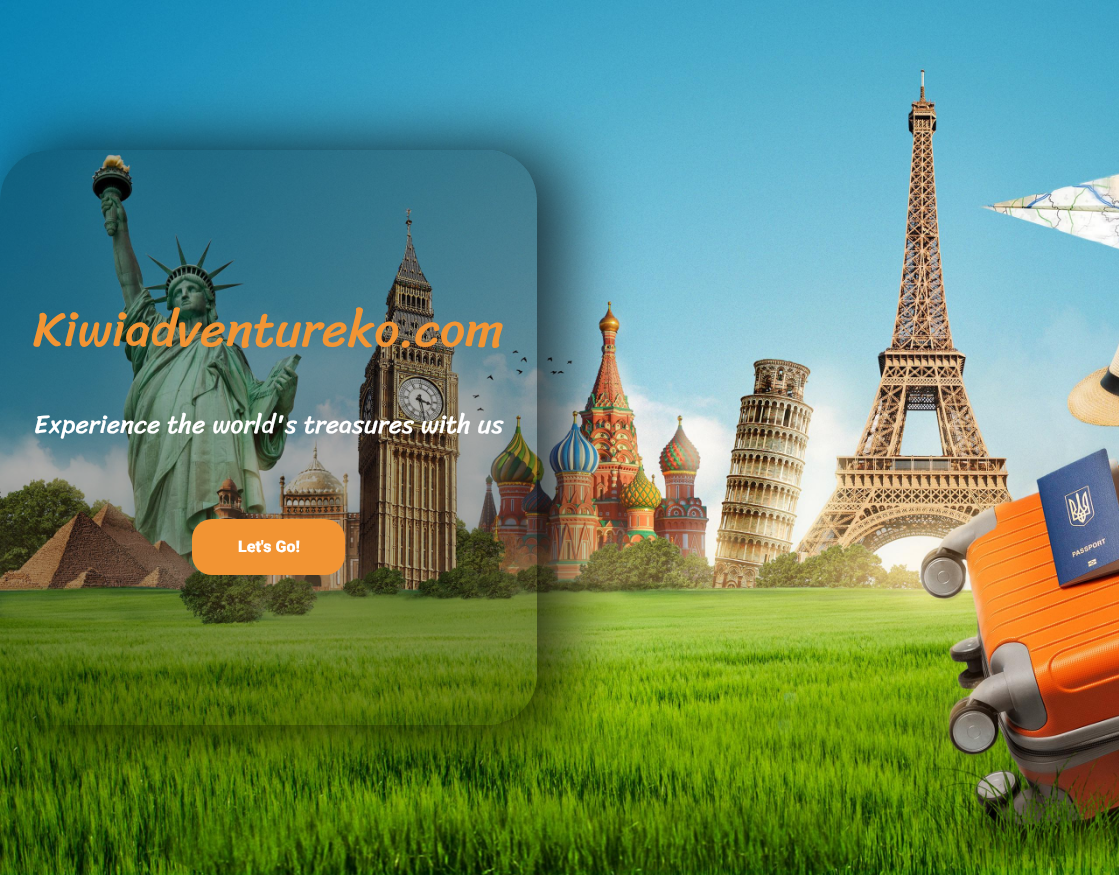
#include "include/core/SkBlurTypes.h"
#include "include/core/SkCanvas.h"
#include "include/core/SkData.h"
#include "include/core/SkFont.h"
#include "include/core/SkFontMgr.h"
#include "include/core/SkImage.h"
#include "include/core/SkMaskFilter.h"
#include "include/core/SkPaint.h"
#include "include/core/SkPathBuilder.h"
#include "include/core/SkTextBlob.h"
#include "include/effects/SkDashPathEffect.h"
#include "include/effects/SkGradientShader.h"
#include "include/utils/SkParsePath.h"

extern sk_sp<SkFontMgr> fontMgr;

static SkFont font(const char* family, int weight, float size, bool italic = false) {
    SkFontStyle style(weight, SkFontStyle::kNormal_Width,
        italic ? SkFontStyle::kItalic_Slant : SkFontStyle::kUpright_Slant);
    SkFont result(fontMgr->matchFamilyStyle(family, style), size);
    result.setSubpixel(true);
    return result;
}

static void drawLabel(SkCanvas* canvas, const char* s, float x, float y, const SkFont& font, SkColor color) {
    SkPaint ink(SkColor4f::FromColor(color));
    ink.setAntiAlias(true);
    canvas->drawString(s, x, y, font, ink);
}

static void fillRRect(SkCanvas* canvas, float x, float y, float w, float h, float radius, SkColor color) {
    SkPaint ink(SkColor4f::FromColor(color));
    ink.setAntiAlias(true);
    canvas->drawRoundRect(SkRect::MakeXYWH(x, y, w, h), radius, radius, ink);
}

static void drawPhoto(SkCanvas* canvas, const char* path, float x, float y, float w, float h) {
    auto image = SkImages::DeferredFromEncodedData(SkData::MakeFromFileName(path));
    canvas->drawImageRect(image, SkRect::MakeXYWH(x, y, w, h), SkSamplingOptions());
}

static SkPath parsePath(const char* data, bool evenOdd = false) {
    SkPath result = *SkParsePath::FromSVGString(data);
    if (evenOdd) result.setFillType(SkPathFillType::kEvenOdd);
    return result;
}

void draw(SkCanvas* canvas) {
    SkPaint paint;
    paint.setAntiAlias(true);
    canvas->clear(0xFFFFFFFF);
    drawPhoto(canvas, "assets/img1.png", 0, 0, 1119, 875);
    canvas->save();
    canvas->clipPath(parsePath("M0 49H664V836H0ZM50 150H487C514.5 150 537 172.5 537 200V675C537 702.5 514.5 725 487 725H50C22.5 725 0 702.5 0 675V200C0 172.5 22.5 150 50 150Z", true), true);
    paint.setColor(0xB5000000);
    paint.setMaskFilter(SkMaskFilter::MakeBlur(kNormal_SkBlurStyle, 32));
    canvas->drawRoundRect(SkRect::MakeXYWH(12, 146, 555, 593), 59, 59, paint);
    paint.setMaskFilter(nullptr);
    canvas->restore();
    fillRRect(canvas, 0, 150, 537, 575, 50, 0x4F000000);
    SkFont font1 = font("Sriracha", 400, 50);
    drawLabel(canvas, "Kiwiadventureko.com", 33, 346, font1, 0xFFF29433);
    SkFont font2 = font("Sriracha", 400, 26);
    drawLabel(canvas, "Experience the world's treasures with us", 34, 433, font2, 0xFFFFFFFF);
    fillRRect(canvas, 192, 519, 153, 56, 20, 0xFFF29433);
    SkFont font3 = font("Roboto", 900, 16);
    drawLabel(canvas, "Let's Go!", 238, 552, font3, 0xFFFFFFFF);
}
